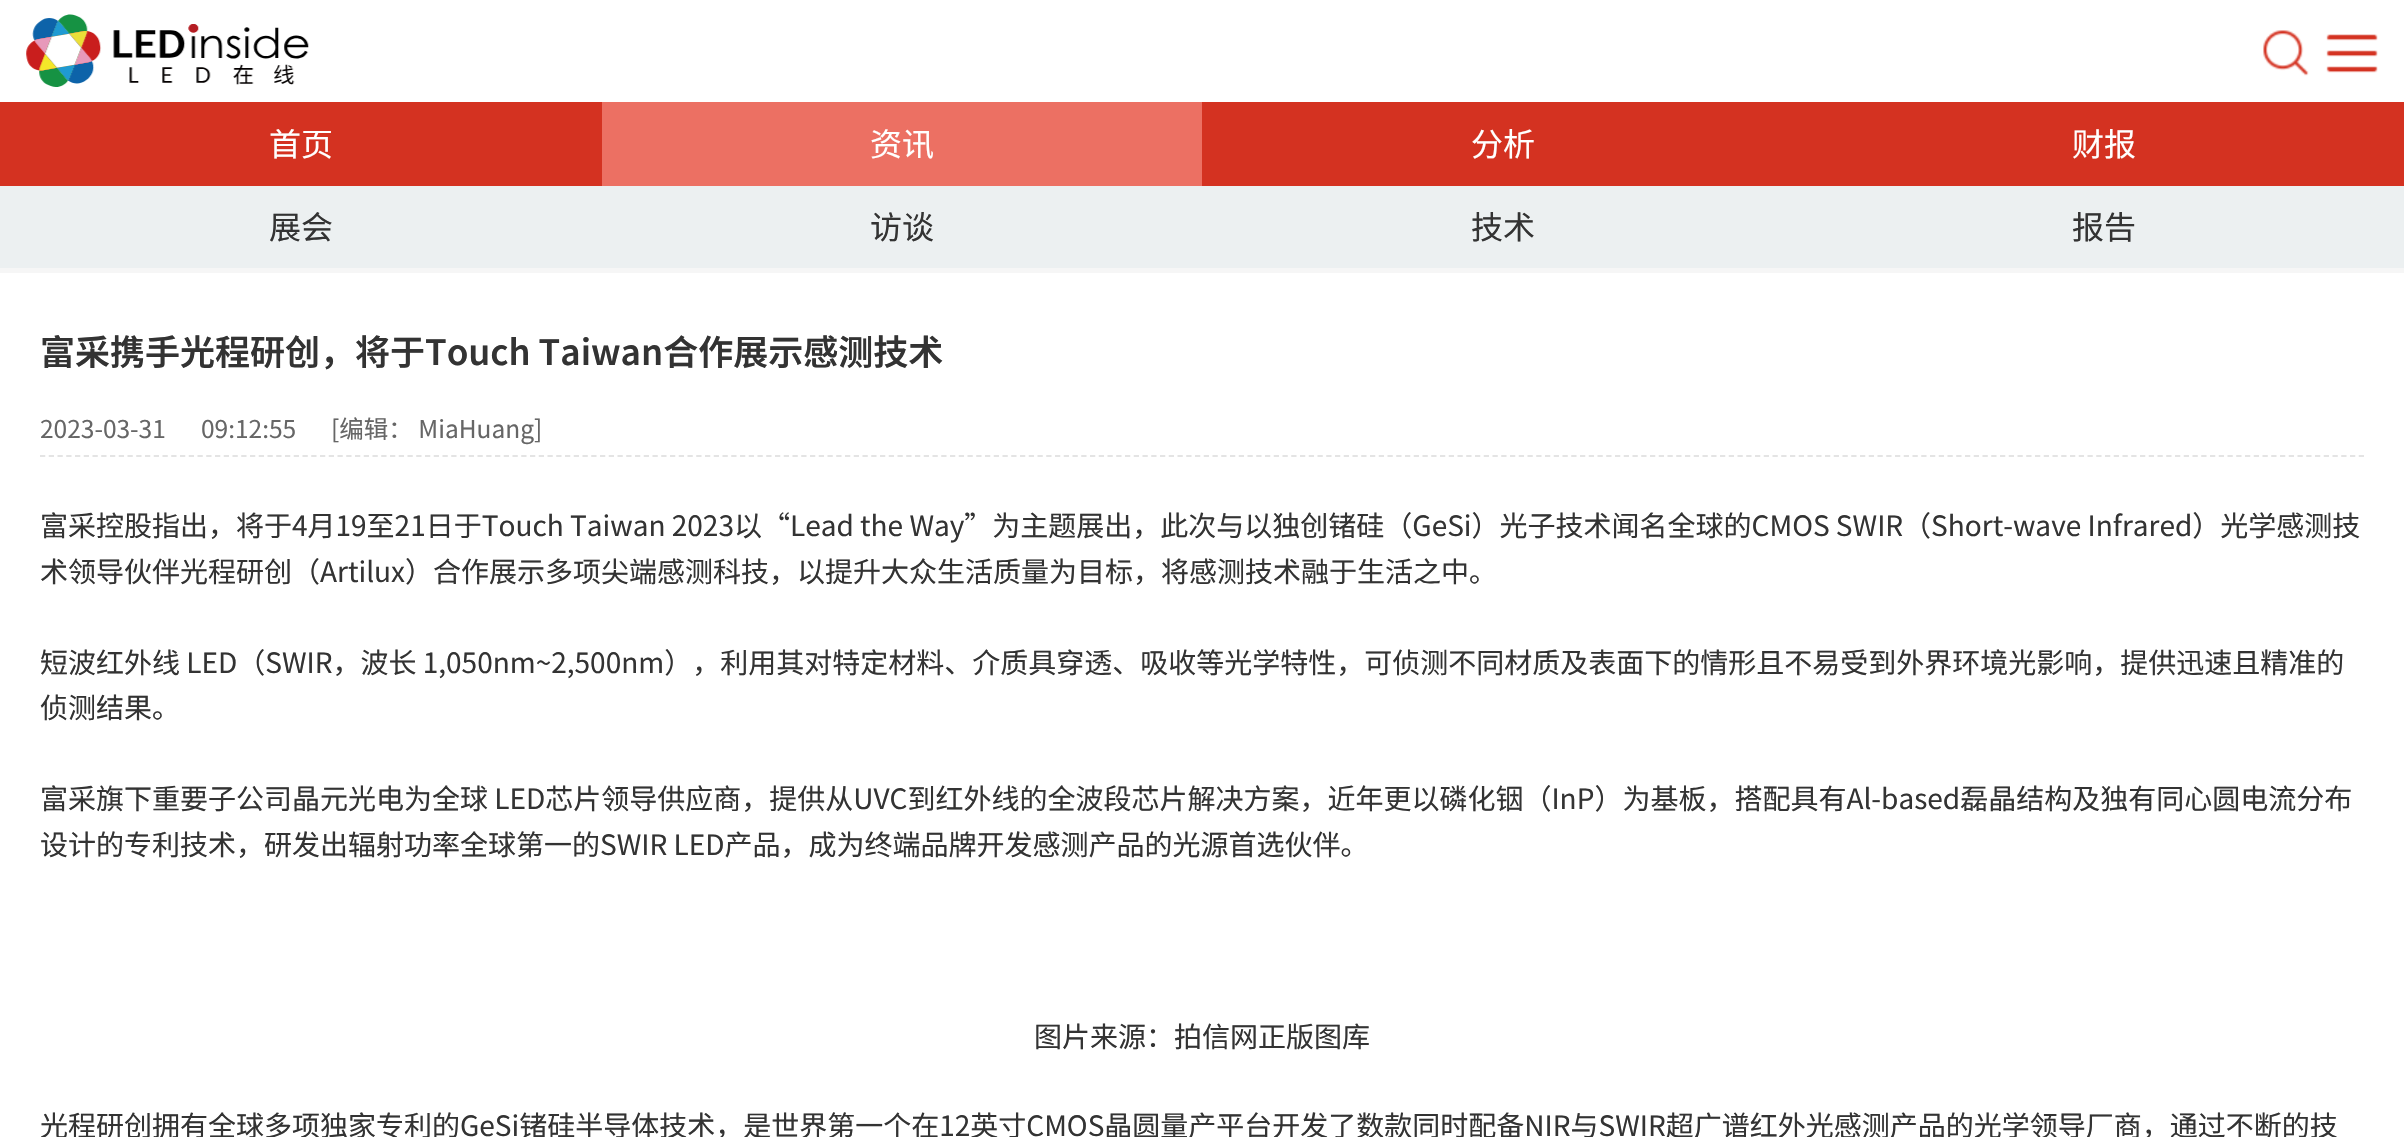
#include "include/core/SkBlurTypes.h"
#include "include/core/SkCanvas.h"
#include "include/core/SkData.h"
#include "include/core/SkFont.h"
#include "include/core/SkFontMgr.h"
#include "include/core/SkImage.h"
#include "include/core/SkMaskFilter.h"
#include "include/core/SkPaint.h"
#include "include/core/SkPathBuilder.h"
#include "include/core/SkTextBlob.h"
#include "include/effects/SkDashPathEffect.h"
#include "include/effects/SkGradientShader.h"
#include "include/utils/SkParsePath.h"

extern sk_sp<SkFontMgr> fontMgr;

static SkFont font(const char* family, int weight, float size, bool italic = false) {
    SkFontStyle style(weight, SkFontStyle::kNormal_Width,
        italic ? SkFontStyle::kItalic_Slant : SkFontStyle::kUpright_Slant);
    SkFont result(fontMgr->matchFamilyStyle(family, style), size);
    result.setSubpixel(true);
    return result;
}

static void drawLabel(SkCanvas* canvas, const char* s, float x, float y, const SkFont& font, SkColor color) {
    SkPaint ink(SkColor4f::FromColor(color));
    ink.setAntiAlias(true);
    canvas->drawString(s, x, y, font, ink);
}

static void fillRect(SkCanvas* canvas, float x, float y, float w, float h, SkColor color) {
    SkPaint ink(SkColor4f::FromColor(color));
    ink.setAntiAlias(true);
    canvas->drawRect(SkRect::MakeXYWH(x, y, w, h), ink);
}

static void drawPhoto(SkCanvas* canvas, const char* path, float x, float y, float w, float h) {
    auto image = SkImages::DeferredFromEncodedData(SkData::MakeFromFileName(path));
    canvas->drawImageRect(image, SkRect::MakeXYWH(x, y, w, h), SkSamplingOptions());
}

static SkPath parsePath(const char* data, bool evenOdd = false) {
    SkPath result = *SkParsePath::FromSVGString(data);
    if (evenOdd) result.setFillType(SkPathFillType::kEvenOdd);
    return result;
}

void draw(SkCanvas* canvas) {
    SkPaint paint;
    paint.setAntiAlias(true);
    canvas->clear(0xFFF6F6F6);
    fillRect(canvas, 0, 0, 2404, 102, 0xFFFFFFFF);
    drawPhoto(canvas, "assets/img1.png", 26, 14, 283, 73);
    drawPhoto(canvas, "assets/img2.png", 2263, 30, 46, 46);
    drawPhoto(canvas, "assets/img3.png", 2326, 34, 52, 39);
    fillRect(canvas, 0, 102, 602, 84, 0xFFD43221);
    SkFont font1 = font("Noto Sans SC", 400, 32);
    drawLabel(canvas, "首页", 269, 156, font1, 0xFFFFFFFF);
    fillRect(canvas, 602, 102, 600, 84, 0xFFEC7063);
    drawLabel(canvas, "资讯", 870, 156, font1, 0xFFFFFFFF);
    fillRect(canvas, 1202, 102, 1202, 84, 0xFFD43221);
    drawLabel(canvas, "分析", 1471, 156, font1, 0xFFFFFFFF);
    drawLabel(canvas, "财报", 2072, 156, font1, 0xFFFFFFFF);
    fillRect(canvas, 0, 186, 2404, 82, 0xFFECF0F1);
    drawLabel(canvas, "展会", 269, 239, font1, 0xFF333333);
    drawLabel(canvas, "访谈", 870, 239, font1, 0xFF333333);
    drawLabel(canvas, "技术", 1471, 239, font1, 0xFF333333);
    drawLabel(canvas, "报告", 2072, 239, font1, 0xFF333333);
    fillRect(canvas, 0, 273, 2404, 864, 0xFFFFFFFF);
    SkFont font2 = font("Noto Sans SC", 600, 35);
    drawLabel(canvas, "富采携手光程研创，将于Touch Taiwan合作展示感测技术", 40, 365, font2, 0xFF333333);
    paint.setStroke(true);
    paint.setStrokeWidth(1.8f);
    paint.setColor(0xFFE4E4E4);
    paint.setPathEffect(SkDashPathEffect::Make({{5.25f, 3.5f}}, 0));
    canvas->drawPath(parsePath("M40 456H2364"), paint);
    paint.setPathEffect(nullptr);
    SkFont font3 = font("Noto Sans SC", 400, 24.5f);
    drawLabel(canvas, "2023-03-31", 40, 438, font3, 0xFF666666);
    drawLabel(canvas, "09:12:55", 201, 438, font3, 0xFF666666);
    drawLabel(canvas, "[编辑： MiaHuang]", 331, 438, font3, 0xFF666666);
    SkFont font4 = font("Noto Sans SC", 400, 28);
    drawLabel(canvas, "富采控股指出，将于4月19至21日于Touch Taiwan 2023以“Lead the Way”为主题展出，此次与以独创锗硅（GeSi）光子技术闻名全球的CMOS SWIR（Short-wave Infrared）光学感测技", 40, 536, font4, 0xFF333333);
    drawLabel(canvas, "术领导伙伴光程研创（Artilux）合作展示多项尖端感测科技，以提升大众生活质量为目标，将感测技术融于生活之中。", 40, 582, font4, 0xFF333333);
    drawLabel(canvas, "短波红外线 LED（SWIR，波长 1,050nm~2,500nm），利用其对特定材料、介质具穿透、吸收等光学特性，可侦测不同材质及表面下的情形且不易受到外界环境光影响，提供迅速且精准的", 40, 673, font4, 0xFF333333);
    drawLabel(canvas, "侦测结果。", 40, 718, font4, 0xFF333333);
    drawLabel(canvas, "富采旗下重要子公司晶元光电为全球 LED芯片领导供应商，提供从UVC到红外线的全波段芯片解决方案，近年更以磷化铟（InP）为基板，搭配具有Al-based磊晶结构及独有同心圆电流分布", 40, 809, font4, 0xFF333333);
    drawLabel(canvas, "设计的专利技术，研发出辐射功率全球第一的SWIR LED产品，成为终端品牌开发感测产品的光源首选伙伴。", 40, 855, font4, 0xFF333333);
    drawLabel(canvas, "图片来源：拍信网正版图库", 1034, 1047, font4, 0xFF333333);
    drawLabel(canvas, "光程研创拥有全球多项独家专利的GeSi锗硅半导体技术，是世界第一个在12英寸CMOS晶圆量产平台开发了数款同时配备NIR与SWIR超广谱红外光感测产品的光学领导厂商，通过不断的技", 40, 1136, font4, 0xFF333333);
}
